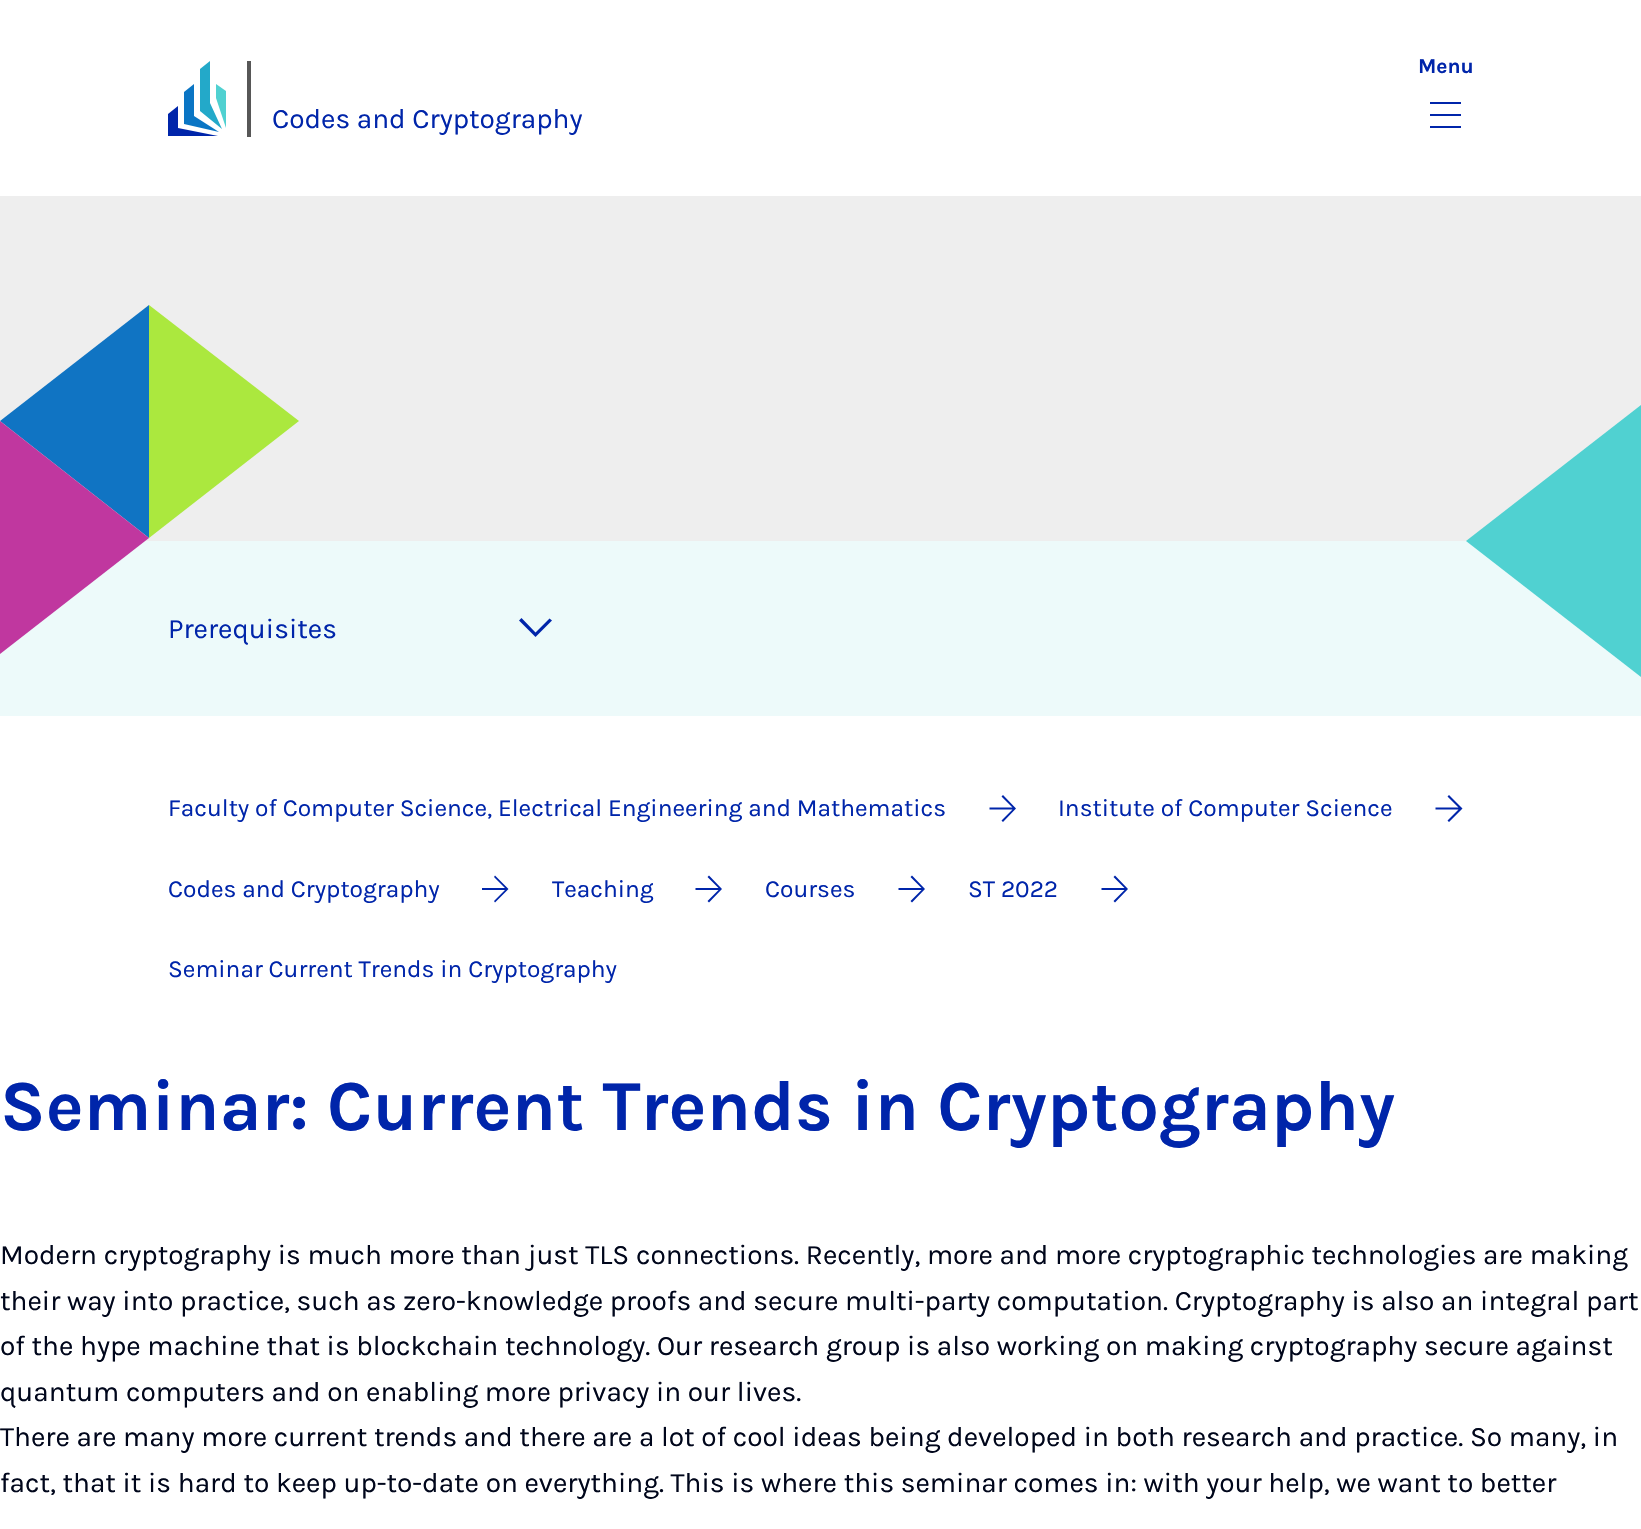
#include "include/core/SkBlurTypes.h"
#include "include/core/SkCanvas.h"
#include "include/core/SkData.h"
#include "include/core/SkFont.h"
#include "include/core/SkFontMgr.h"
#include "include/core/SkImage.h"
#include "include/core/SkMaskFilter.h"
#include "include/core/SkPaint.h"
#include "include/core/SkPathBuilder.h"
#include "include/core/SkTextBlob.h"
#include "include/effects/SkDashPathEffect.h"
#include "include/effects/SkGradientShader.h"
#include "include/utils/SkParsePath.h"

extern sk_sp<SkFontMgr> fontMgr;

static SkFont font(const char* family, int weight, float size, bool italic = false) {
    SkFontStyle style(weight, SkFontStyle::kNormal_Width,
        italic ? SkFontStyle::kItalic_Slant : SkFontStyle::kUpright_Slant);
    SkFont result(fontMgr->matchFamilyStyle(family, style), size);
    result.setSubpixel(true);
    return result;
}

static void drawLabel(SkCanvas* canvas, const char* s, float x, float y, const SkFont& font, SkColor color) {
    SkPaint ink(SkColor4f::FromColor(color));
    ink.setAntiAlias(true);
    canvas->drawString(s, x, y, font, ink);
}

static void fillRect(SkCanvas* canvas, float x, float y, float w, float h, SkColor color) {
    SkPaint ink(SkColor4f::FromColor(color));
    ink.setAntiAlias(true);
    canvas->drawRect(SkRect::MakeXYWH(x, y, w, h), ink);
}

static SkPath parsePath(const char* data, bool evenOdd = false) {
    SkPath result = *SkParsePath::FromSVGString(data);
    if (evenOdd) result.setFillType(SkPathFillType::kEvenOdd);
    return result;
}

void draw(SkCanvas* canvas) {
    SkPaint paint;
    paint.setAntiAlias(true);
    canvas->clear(0xFFFFFFFF);
    SkFont font1 = font("Karla", 700, 21);
    drawLabel(canvas, "Menu", 1418, 73, font1, 0xFF0025AA);
    fillRect(canvas, 1430, 114, 31, 2, 0xFF0025AA);
    fillRect(canvas, 1430, 102, 31, 2, 0xFF0025AA);
    fillRect(canvas, 1430, 126, 31, 2, 0xFF0025AA);
    paint.setColor(0xFF50D1D1);
    canvas->drawPath(parsePath("M216 84L226 91V128L216 98Z"), paint);
    paint.setColor(0xFF23A9C9);
    canvas->drawPath(parsePath("M210 103L222 129L200 111V69L210 61Z"), paint);
    paint.setColor(0xFF0A75C4);
    canvas->drawPath(parsePath("M194 116L219 132L184 124V92L194 84Z"), paint);
    paint.setColor(0xFF0025AA);
    canvas->drawPath(parsePath("M178 128L218 136H168V114L178 106Z"), paint);
    fillRect(canvas, 247, 61, 4, 76, 0xFF575757);
    SkFont font2 = font("Karla", 400, 28);
    drawLabel(canvas, "Codes and Cryptography", 272, 128, font2, 0xFF0025AA);
    fillRect(canvas, 0, 196, 1641, 345, 0xFFEEEEEE);
    paint.setColor(0xFFABE83E);
    canvas->drawPath(parsePath("M299 421L149 538V305Z"), paint);
    paint.setColor(0xFF1074C3);
    canvas->drawPath(parsePath("M0 421L149 305V538Z"), paint);
    fillRect(canvas, 0, 541, 1641, 175, 0xFFEDFAFA);
    paint.setColor(0xFFC0379F);
    canvas->drawPath(parsePath("M149 538L0 654V421Z"), paint);
    drawLabel(canvas, "Prerequisites", 168, 638, font2, 0xFF0025AA);
    paint.setColor(0xFF0025AA);
    canvas->drawPath(parsePath("M535.5 637L519 620.5L521.5 618L535.5 632.5L549.5 618.5L552 620.5Z"), paint);
    paint.setColor(0xFF50D1D1);
    canvas->drawPath(parsePath("M1641 405L1466 541L1641 677Z"), paint);
    SkFont font3 = font("Karla", 400, 24.5f);
    drawLabel(canvas, "Faculty of Computer Science, Electrical Engineering and Mathematics", 168, 816, font3, 0xFF0025AA);
    paint.setColor(0xFF0025AA);
    canvas->drawPath(parsePath("M1003 822L1001.5 820.5L1012.5 809.5H989.5V807.5H1012.5L1001.5 796.5L1003 795L1016 808.5Z"), paint);
    drawLabel(canvas, "Institute of Computer Science", 1058, 816, font3, 0xFF0025AA);
    canvas->drawPath(parsePath("M1449 822L1447.5 820.5L1458.5 809.5H1435.5V807.5H1458.5L1447.5 796.5L1449 795L1462.5 808.5Z"), paint);
    drawLabel(canvas, "Codes and Cryptography", 168, 897, font3, 0xFF0025AA);
    canvas->drawPath(parsePath("M495 902.5L494 901L505 890H482V888H505L494 877L495 875.5L508.5 889Z"), paint);
    drawLabel(canvas, "Teaching", 552, 897, font3, 0xFF0025AA);
    canvas->drawPath(parsePath("M709 902.5L707.5 901L718.5 890H695.5V888H718.5L707.5 877L709 875.5L722 889Z"), paint);
    drawLabel(canvas, "Courses", 765, 897, font3, 0xFF0025AA);
    canvas->drawPath(parsePath("M912 902.5L910.5 901L921.5 890H898.5V888H921.5L910.5 877L912 875.5L925 889Z"), paint);
    drawLabel(canvas, "ST 2022", 968, 897, font3, 0xFF0025AA);
    canvas->drawPath(parsePath("M1115 902.5L1113.5 901L1124.5 890H1101.5V888H1124.5L1113.5 877L1115 875.5L1128 889Z"), paint);
    drawLabel(canvas, "Seminar Current Trends in Cryptography", 168, 977, font3, 0xFF0025AA);
    SkFont font4 = font("Karla", 700, 71.6f);
    drawLabel(canvas, "Seminar: Current Trends in Cryptography", 0, 1130, font4, 0xFF0025AA);
    drawLabel(canvas, "Modern cryptography is much more than just TLS connections. Recently, more and more cryptographic technologies are making", 0, 1264, font2, 0xFF00061B);
    drawLabel(canvas, "their way into practice, such as zero-knowledge proofs and secure multi-party computation. Cryptography is also an integral part", 0, 1310, font2, 0xFF00061B);
    drawLabel(canvas, "of the hype machine that is blockchain technology. Our research group is also working on making cryptography secure against", 0, 1355, font2, 0xFF00061B);
    drawLabel(canvas, "quantum computers and on enabling more privacy in our lives.", 0, 1401, font2, 0xFF00061B);
    drawLabel(canvas, "There are many more current trends and there are a lot of cool ideas being developed in both research and practice. So many, in", 0, 1446, font2, 0xFF00061B);
    drawLabel(canvas, "fact, that it is hard to keep up-to-date on everything. This is where this seminar comes in: with your help, we want to better", 0, 1492, font2, 0xFF00061B);
}
